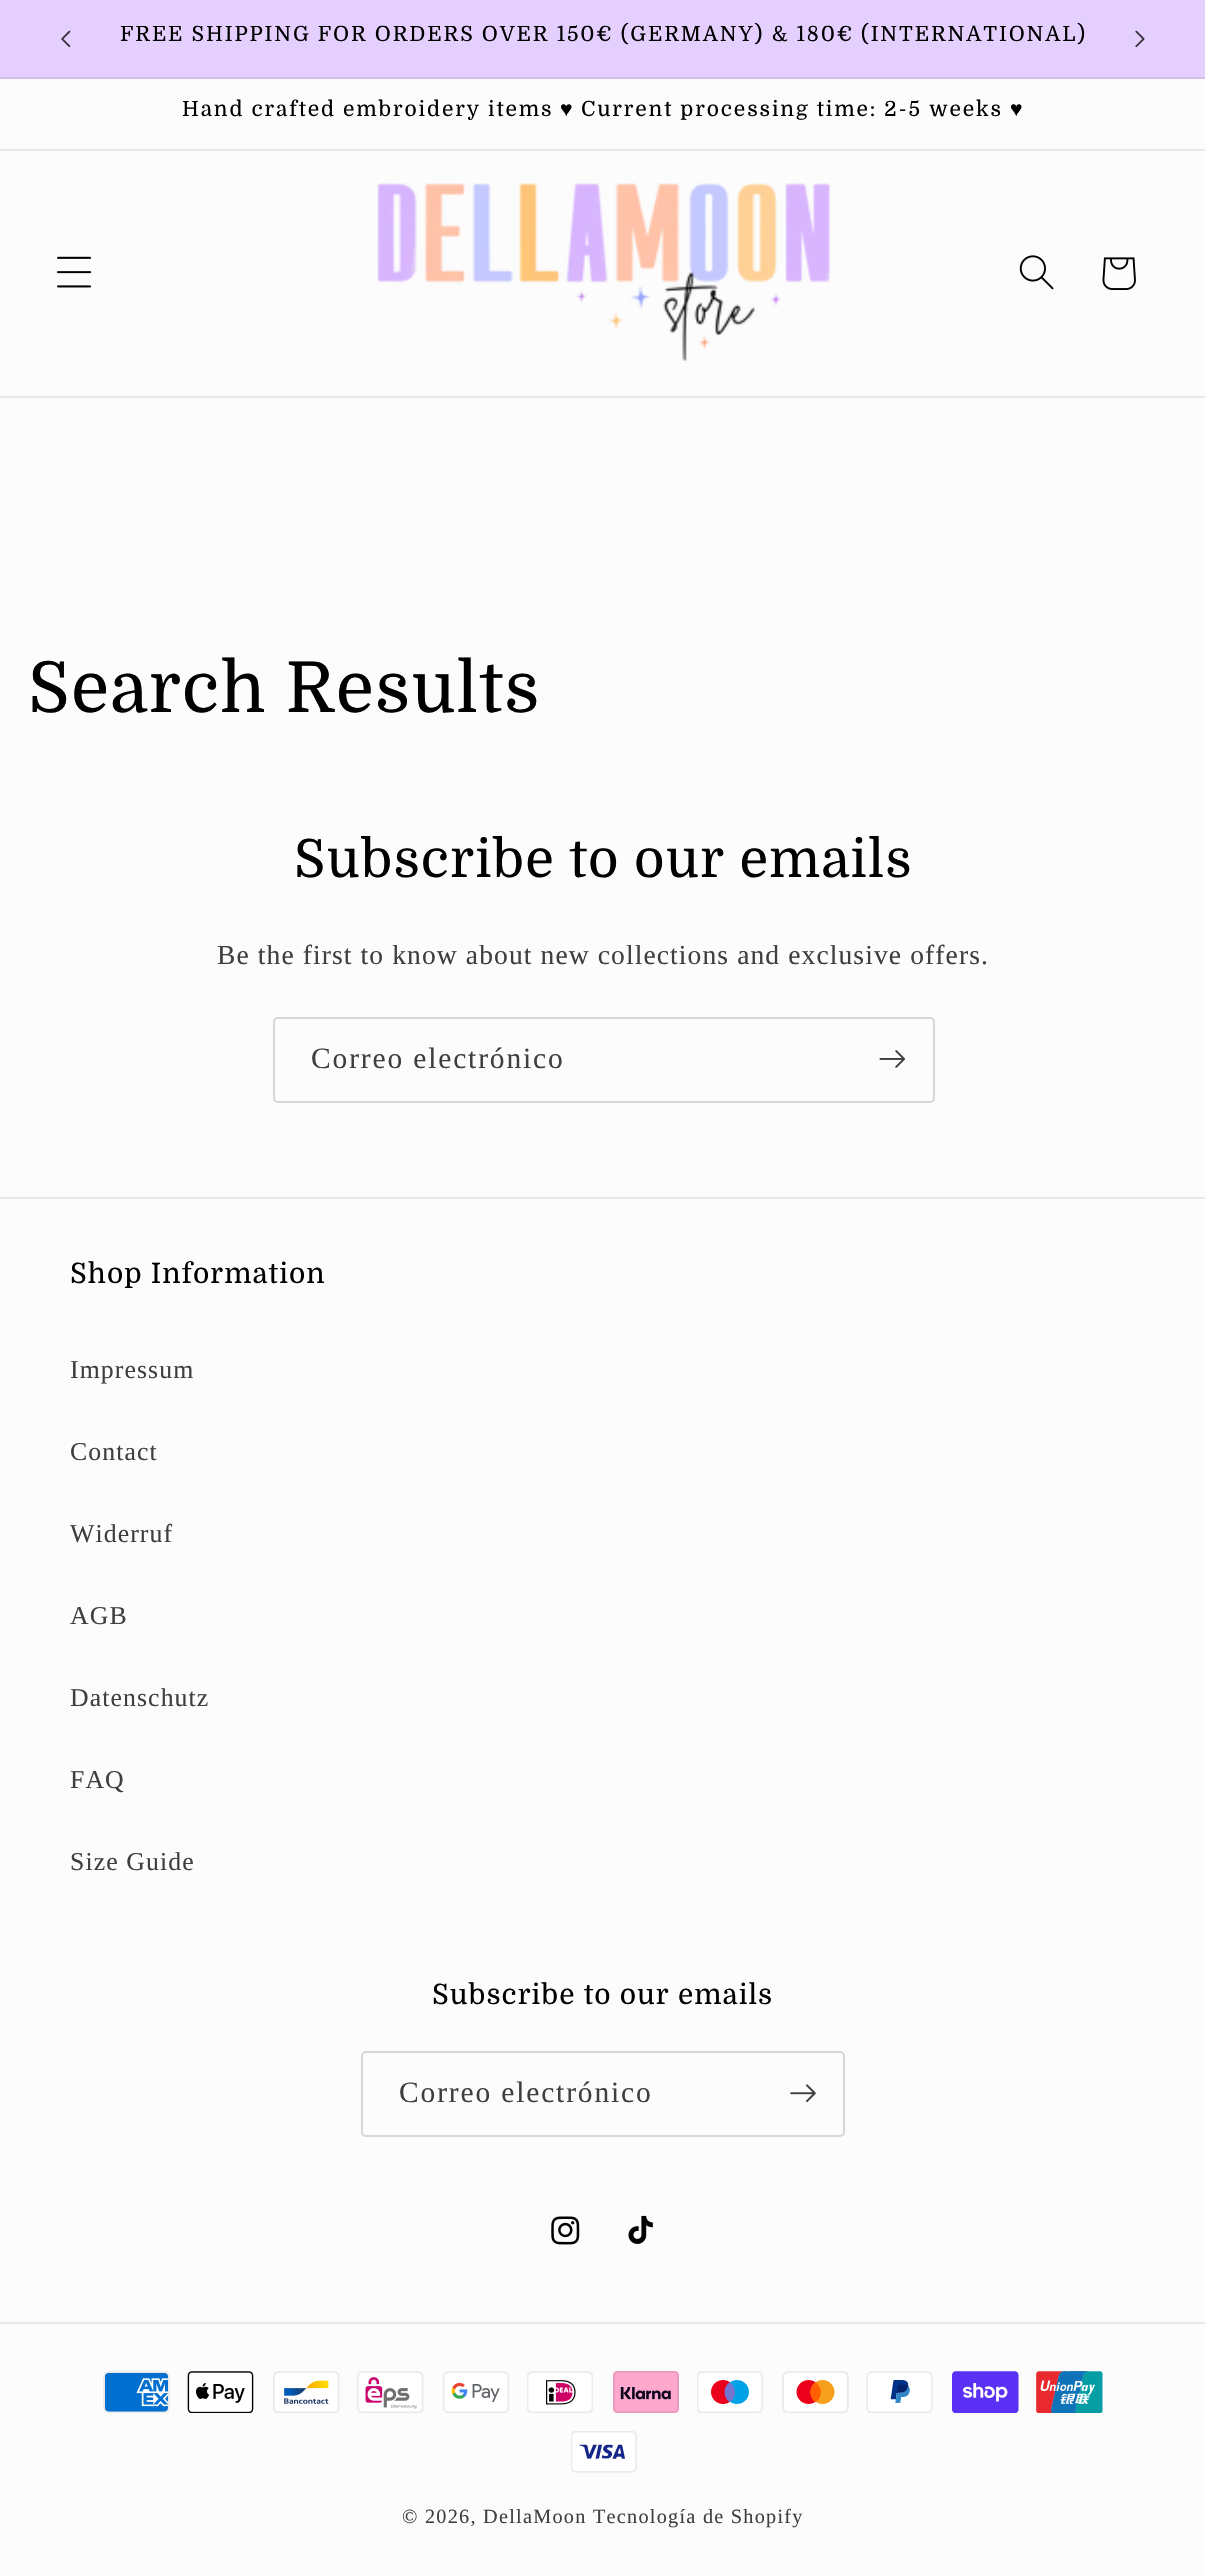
#include "include/core/SkBlurTypes.h"
#include "include/core/SkCanvas.h"
#include "include/core/SkData.h"
#include "include/core/SkFont.h"
#include "include/core/SkFontMgr.h"
#include "include/core/SkImage.h"
#include "include/core/SkMaskFilter.h"
#include "include/core/SkPaint.h"
#include "include/core/SkPathBuilder.h"
#include "include/core/SkTextBlob.h"
#include "include/effects/SkDashPathEffect.h"
#include "include/effects/SkGradientShader.h"
#include "include/utils/SkParsePath.h"

extern sk_sp<SkFontMgr> fontMgr;

static SkFont font(const char* family, int weight, float size, bool italic = false) {
    SkFontStyle style(weight, SkFontStyle::kNormal_Width,
        italic ? SkFontStyle::kItalic_Slant : SkFontStyle::kUpright_Slant);
    SkFont result(fontMgr->matchFamilyStyle(family, style), size);
    result.setSubpixel(true);
    return result;
}

static void drawTracked(SkCanvas* canvas, const char* s, float x, float y, const SkFont& font, const SkPaint& ink, float letter, float word) {
    std::vector<SkGlyphID> glyphs(font.countText(s, strlen(s), SkTextEncoding::kUTF8));
    std::vector<float> xs(glyphs.size());
    font.textToGlyphs(s, strlen(s), SkTextEncoding::kUTF8, glyphs);
    font.getXPos(glyphs, xs, x);
    float extra = 0;
    for (size_t i = 0; i < glyphs.size(); i++) {
        xs[i] += extra;
        extra += letter + word * (glyphs[i] == font.unicharToGlyph(' '));
    }
    canvas->drawTextBlob(SkTextBlob::MakeFromPosHGlyphs(glyphs, xs, y, font), 0, 0, ink);
}

static void fillRect(SkCanvas* canvas, float x, float y, float w, float h, SkColor color) {
    SkPaint ink(SkColor4f::FromColor(color));
    ink.setAntiAlias(true);
    canvas->drawRect(SkRect::MakeXYWH(x, y, w, h), ink);
}

static void drawPhoto(SkCanvas* canvas, const char* path, float x, float y, float w, float h) {
    auto image = SkImages::DeferredFromEncodedData(SkData::MakeFromFileName(path));
    canvas->drawImageRect(image, SkRect::MakeXYWH(x, y, w, h), SkSamplingOptions());
}

void draw(SkCanvas* canvas) {
    SkPaint paint;
    paint.setAntiAlias(true);
    canvas->clear(0xFFFCFCFC);
    fillRect(canvas, 0, 0, 1205, 77, 0xFFE4CFFF);
    fillRect(canvas, 0, 77, 1205, 2, 0xFFD2BEEB);
    drawPhoto(canvas, "assets/img1.png", 61, 30, 10, 18);
    SkFont font1 = font("Domine", 400, 21);
    paint.setColor(0xFF000000);
    drawTracked(canvas, "FREE SHIPPING FOR ORDERS OVER 150€ (GERMANY) & 180€ (INTERNATIONAL)", 120, 41, font1, paint, 1.85f, 0);
    drawPhoto(canvas, "assets/img2.png", 1135, 30, 10, 18);
    fillRect(canvas, 0, 149, 1205, 2, 0xFFE8E8E8);
    drawTracked(canvas, "Hand crafted embroidery items", 182, 116, font1, paint, 1.85f, 0);
    SkFont font2 = font("Liberation Serif", 400, 21);
    drawTracked(canvas, "♥", 560, 116, font2, paint, 1.85f, 0);
    drawTracked(canvas, "Current processing time: 2-5 weeks", 581, 116, font1, paint, 1.85f, 0);
    drawTracked(canvas, "♥", 1010, 116, font2, paint, 1.85f, 0);
    fillRect(canvas, 0, 396, 1205, 2, 0xFFE8E8E8);
    drawPhoto(canvas, "assets/img3.png", 57, 256, 35, 32);
    drawPhoto(canvas, "assets/img4.png", 377, 183, 453, 178);
    drawPhoto(canvas, "assets/img5.png", 1019, 255, 35, 35);
    drawPhoto(canvas, "assets/img6.png", 1102, 257, 34, 33);
    SkFont font3 = font("Domine", 400, 70);
    drawTracked(canvas, "Search Results", 28, 712, font3, paint, 1.05f, 0);
    SkFont font4 = font("Domine", 400, 52.5f);
    drawTracked(canvas, "Subscribe to our emails", 294, 877, font4, paint, 1.05f, 0);
    SkFont font5 = font("Liberation Serif", 400, 27.55f);
    paint.setColor(0xFF3F3F3F);
    drawTracked(canvas, "Be the first to know about new collections and exclusive offers.", 217, 964, font5, paint, 1.1f, 0);
    paint.setStroke(true);
    paint.setStrokeWidth(2);
    paint.setColor(0xFFD6D6D6);
    canvas->drawRoundRect(SkRect::MakeXYWH(274, 1018, 660, 84), 4, 4, paint);
    SkFont font6 = font("Liberation Serif", 400, 29.5f);
    paint.setStroke(false);
    paint.setColor(0xFF3F3F3F);
    drawTracked(canvas, "Correo electrónico", 311, 1068, font6, paint, 1.85f, 0);
    drawPhoto(canvas, "assets/img7.png", 879, 1050, 26, 18);
    fillRect(canvas, 0, 1197, 1205, 2, 0xFFE8E8E8);
    SkFont font7 = font("Domine", 400, 28);
    paint.setColor(0xFF000000);
    drawTracked(canvas, "Shop Information", 70, 1283, font7, paint, 1.05f, 0);
    SkFont font8 = font("Liberation Serif", 400, 25.75f);
    paint.setColor(0xFF3F3F3F);
    drawTracked(canvas, "Impressum", 70, 1378, font8, paint, 1.1f, 0);
    drawTracked(canvas, "Contact", 70, 1460, font8, paint, 1.1f, 0);
    drawTracked(canvas, "Widerruf", 70, 1542, font8, paint, 1.1f, 0);
    drawTracked(canvas, "AGB", 70, 1624, font8, paint, 1.1f, 0);
    drawTracked(canvas, "Datenschutz", 70, 1706, font8, paint, 1.1f, 0);
    drawTracked(canvas, "FAQ", 70, 1788, font8, paint, 1.1f, 0);
    drawTracked(canvas, "Size Guide", 70, 1870, font8, paint, 1.1f, 0);
    paint.setColor(0xFF000000);
    drawTracked(canvas, "Subscribe to our emails", 432, 2004, font7, paint, 1.05f, 0);
    paint.setStroke(true);
    paint.setColor(0xFFD6D6D6);
    canvas->drawRoundRect(SkRect::MakeXYWH(362, 2052, 482, 84), 4, 4, paint);
    paint.setStroke(false);
    paint.setColor(0xFF3F3F3F);
    drawTracked(canvas, "Correo electrónico", 399, 2102, font6, paint, 1.85f, 0);
    drawPhoto(canvas, "assets/img8.png", 790, 2084, 26, 18);
    drawPhoto(canvas, "assets/img9.png", 551, 2216, 29, 29);
    drawPhoto(canvas, "assets/img10.png", 628, 2215, 25, 29);
    fillRect(canvas, 0, 2322, 1205, 2, 0xFFE8E8E8);
    drawPhoto(canvas, "assets/img11.png", 103, 2371, 67, 42);
    drawPhoto(canvas, "assets/img12.png", 187, 2371, 67, 42);
    drawPhoto(canvas, "assets/img13.png", 273, 2371, 67, 42);
    drawPhoto(canvas, "assets/img14.png", 357, 2371, 67, 42);
    drawPhoto(canvas, "assets/img15.png", 443, 2371, 66, 42);
    drawPhoto(canvas, "assets/img16.png", 527, 2371, 66, 42);
    drawPhoto(canvas, "assets/img17.png", 613, 2371, 66, 42);
    drawPhoto(canvas, "assets/img18.png", 697, 2371, 66, 42);
    drawPhoto(canvas, "assets/img19.png", 782, 2371, 67, 42);
    drawPhoto(canvas, "assets/img20.png", 866, 2371, 67, 42);
    drawPhoto(canvas, "assets/img21.png", 952, 2371, 67, 42);
    drawPhoto(canvas, "assets/img22.png", 1036, 2371, 67, 42);
    drawPhoto(canvas, "assets/img23.png", 571, 2431, 66, 42);
    SkFont font9 = font("Liberation Serif", 400, 20.25f);
    drawTracked(canvas, "© 2026, DellaMoon", 402, 2523, font9, paint, 1.25f, 0);
    drawTracked(canvas, "Tecnología de Shopify", 593, 2523, font9, paint, 1.25f, 0);
}
